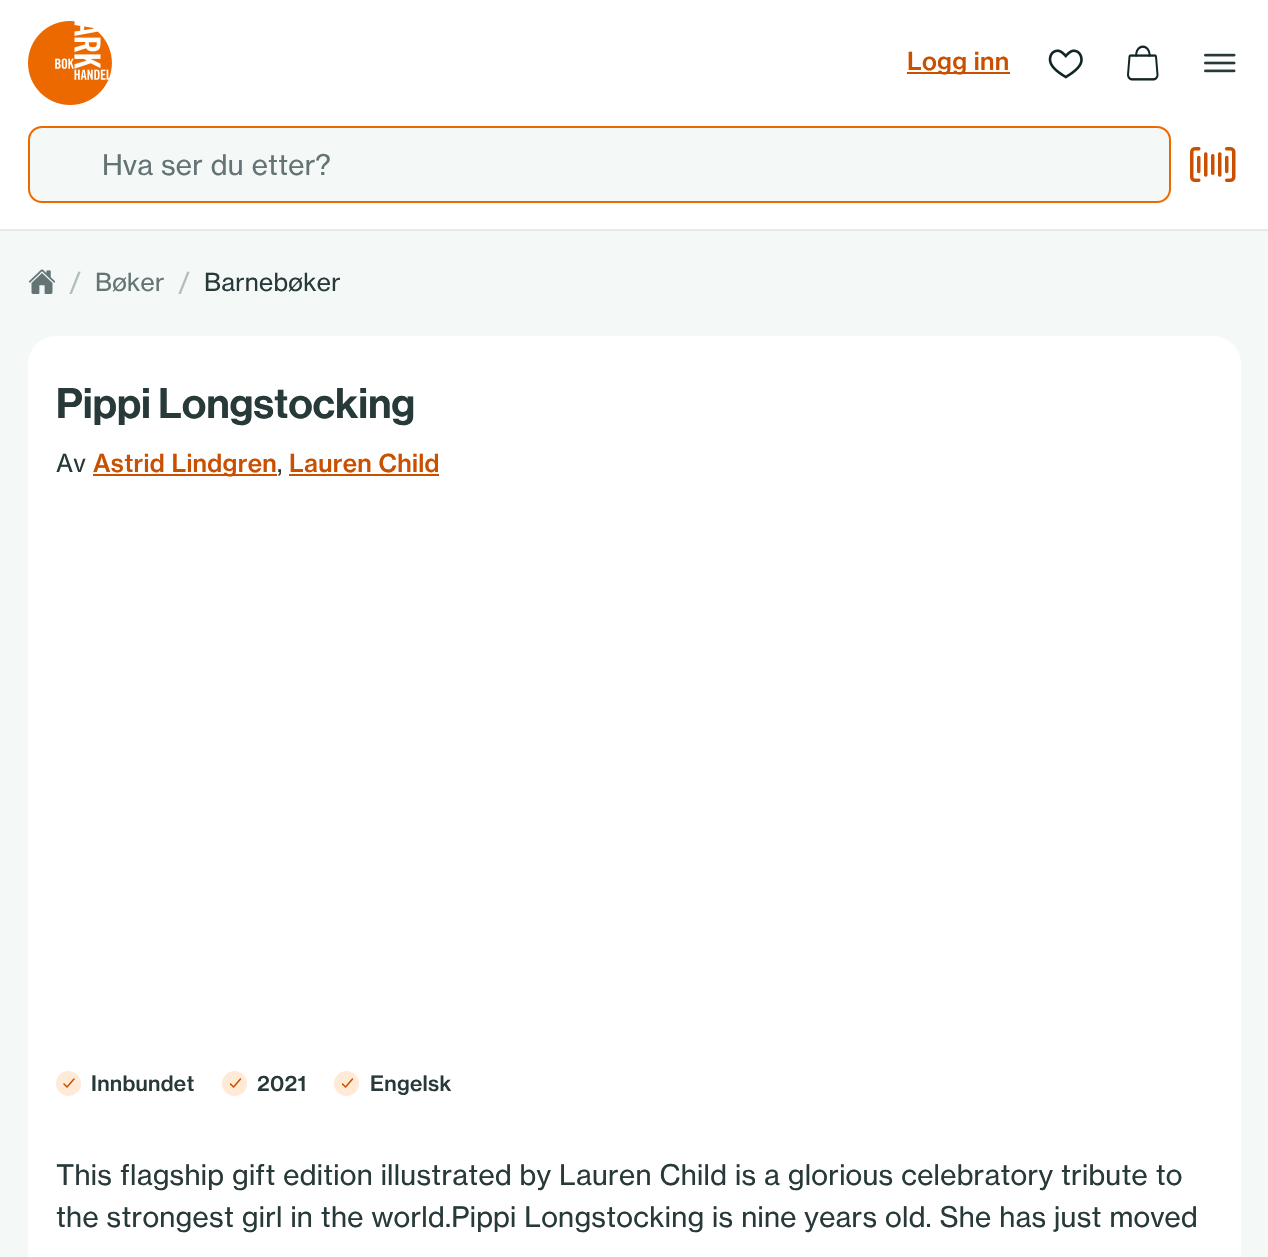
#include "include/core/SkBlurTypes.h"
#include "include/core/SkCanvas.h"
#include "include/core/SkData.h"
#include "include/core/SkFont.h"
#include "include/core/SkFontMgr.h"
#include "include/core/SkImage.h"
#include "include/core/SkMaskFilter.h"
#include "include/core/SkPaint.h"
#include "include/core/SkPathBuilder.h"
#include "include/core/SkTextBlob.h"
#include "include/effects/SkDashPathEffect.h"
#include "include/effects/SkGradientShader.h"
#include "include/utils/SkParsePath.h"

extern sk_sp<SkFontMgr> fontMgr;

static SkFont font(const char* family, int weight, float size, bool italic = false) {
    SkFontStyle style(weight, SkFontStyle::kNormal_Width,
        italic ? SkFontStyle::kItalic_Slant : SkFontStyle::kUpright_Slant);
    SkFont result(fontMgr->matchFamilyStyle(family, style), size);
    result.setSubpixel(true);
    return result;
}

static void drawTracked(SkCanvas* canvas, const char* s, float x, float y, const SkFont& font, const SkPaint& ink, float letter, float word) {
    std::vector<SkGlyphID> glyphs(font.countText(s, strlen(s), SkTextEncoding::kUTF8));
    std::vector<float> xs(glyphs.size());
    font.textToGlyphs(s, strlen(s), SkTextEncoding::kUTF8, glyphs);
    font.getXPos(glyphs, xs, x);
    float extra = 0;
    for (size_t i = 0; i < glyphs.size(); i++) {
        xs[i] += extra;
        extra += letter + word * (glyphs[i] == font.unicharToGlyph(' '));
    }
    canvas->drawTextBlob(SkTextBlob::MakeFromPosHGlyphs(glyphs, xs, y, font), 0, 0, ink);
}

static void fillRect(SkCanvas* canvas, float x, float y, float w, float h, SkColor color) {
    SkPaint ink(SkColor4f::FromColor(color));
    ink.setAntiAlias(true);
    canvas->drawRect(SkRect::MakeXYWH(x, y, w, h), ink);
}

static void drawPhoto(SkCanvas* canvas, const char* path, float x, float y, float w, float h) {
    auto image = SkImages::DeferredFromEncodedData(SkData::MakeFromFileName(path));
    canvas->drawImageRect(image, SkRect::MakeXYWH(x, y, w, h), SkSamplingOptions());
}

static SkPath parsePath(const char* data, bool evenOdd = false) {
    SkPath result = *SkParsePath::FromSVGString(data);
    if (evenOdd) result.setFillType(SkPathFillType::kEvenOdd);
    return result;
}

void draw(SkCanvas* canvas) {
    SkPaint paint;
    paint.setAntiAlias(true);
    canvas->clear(0xFFFFFFFF);
    fillRect(canvas, 0, 229, 1268, 2, 0xFFE5EAE8);
    drawPhoto(canvas, "assets/img1.png", 28, 21, 84, 84);
    fillRect(canvas, 907, 72, 103, 2, 0xFFC95000);
    SkFont font1 = font("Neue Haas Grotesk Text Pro", 500, 24.5f);
    paint.setColor(0xFFC95000);
    drawTracked(canvas, "Logg inn", 907, 70, font1, paint, 0.28f, 0);
    drawPhoto(canvas, "assets/img2.png", 1048, 49, 35, 30);
    drawPhoto(canvas, "assets/img3.png", 1127, 45, 32, 36);
    drawPhoto(canvas, "assets/img4.png", 1204, 53, 32, 20);
    paint.setColor(0xFFF4F8F7);
    canvas->drawRoundRect(SkRect::MakeXYWH(29, 127, 1141, 75), 13, 13, paint);
    paint.setStroke(true);
    paint.setStrokeWidth(2);
    paint.setColor(0xFFEC6900);
    canvas->drawRoundRect(SkRect::MakeXYWH(29, 127, 1141, 75), 13, 13, paint);
    SkFont font2 = font("Neue Haas Grotesk Text Pro", 400, 28);
    paint.setStroke(false);
    paint.setColor(0xFF647373);
    drawTracked(canvas, "Hva ser du etter?", 102, 175, font2, paint, 0.28f, 0);
    drawPhoto(canvas, "assets/img5.png", 1190, 147, 46, 35);
    fillRect(canvas, 0, 231, 1268, 1026, 0xFFF4F8F7);
    drawPhoto(canvas, "assets/img6.png", 28, 269, 28, 25);
    SkFont font3 = font("Neue Haas Grotesk Text Pro", 400, 24.5f);
    paint.setColor(0xFFB0BDBD);
    drawTracked(canvas, "/", 70, 291, font3, paint, 0.28f, 0);
    paint.setColor(0xFF647373);
    drawTracked(canvas, "Bøker", 95, 291, font3, paint, 0.28f, 0);
    paint.setColor(0xFFB0BDBD);
    drawTracked(canvas, "/", 179, 291, font3, paint, 0.28f, 0);
    paint.setColor(0xFF283939);
    drawTracked(canvas, "Barnebøker", 204, 291, font3, paint, 0.28f, 0);
    paint.setColor(0xFFFFFFFF);
    canvas->drawPath(parsePath("M56 336H1213C1228.5 336 1241 348.5 1241 364V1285H28V364C28 348.5 40.5 336 56 336Z"), paint);
    SkFont font4 = font("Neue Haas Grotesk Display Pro", 500, 42);
    paint.setColor(0xFF283939);
    drawTracked(canvas, "Pippi Longstocking", 56, 418, font4, paint, 0.28f, 0);
    drawTracked(canvas, "Av", 56, 472, font3, paint, 0.28f, 0);
    fillRect(canvas, 93, 474, 184, 2, 0xFFC95000);
    paint.setColor(0xFFC95000);
    drawTracked(canvas, "Astrid Lindgren", 93, 472, font1, paint, 0.28f, 0);
    paint.setColor(0xFF283939);
    drawTracked(canvas, ",", 277, 472, font3, paint, 0.28f, 0);
    fillRect(canvas, 289, 474, 150, 2, 0xFFC95000);
    paint.setColor(0xFFC95000);
    drawTracked(canvas, "Lauren Child", 289, 472, font1, paint, 0.28f, 0);
    paint.setColor(0xFFFFEAD8);
    canvas->drawCircle(68.5f, 1083.5f, 12.5f, paint);
    paint.setStroke(true);
    paint.setStrokeWidth(1.5f);
    paint.setStrokeCap(SkPaint::kRound_Cap);
    paint.setStrokeJoin(SkPaint::kRound_Join);
    paint.setColor(0xFFC95000);
    canvas->drawPath(parsePath("M74 1079L67 1087L64 1084"), paint);
    SkFont font5 = font("Neue Haas Grotesk Text Pro", 500, 21);
    paint.setStroke(false);
    paint.setColor(0xFF283939);
    drawTracked(canvas, "Innbundet", 91, 1091, font5, paint, 0.28f, 0);
    paint.setColor(0xFFFFEAD8);
    canvas->drawCircle(234.5f, 1083.5f, 12.5f, paint);
    paint.setStroke(true);
    paint.setColor(0xFFC95000);
    canvas->drawPath(parsePath("M240.5 1079L233.5 1087L230.5 1084"), paint);
    paint.setStroke(false);
    paint.setColor(0xFF283939);
    drawTracked(canvas, "2021", 257, 1091, font5, paint, 0.28f, 0);
    paint.setColor(0xFFFFEAD8);
    canvas->drawCircle(346.5f, 1083.5f, 12.5f, paint);
    paint.setStroke(true);
    paint.setColor(0xFFC95000);
    canvas->drawPath(parsePath("M352.5 1079L345.5 1087L342.5 1084"), paint);
    paint.setStroke(false);
    paint.setColor(0xFF283939);
    drawTracked(canvas, "Engelsk", 370, 1091, font5, paint, 0.28f, 0);
    drawTracked(canvas, "This flagship gift edition illustrated by Lauren Child is a glorious celebratory tribute to", 56, 1185, font2, paint, 0.28f, 0);
    drawTracked(canvas, "the strongest girl in the world.Pippi Longstocking is nine years old. She has just moved", 56, 1227, font2, paint, 0.28f, 0);
}
